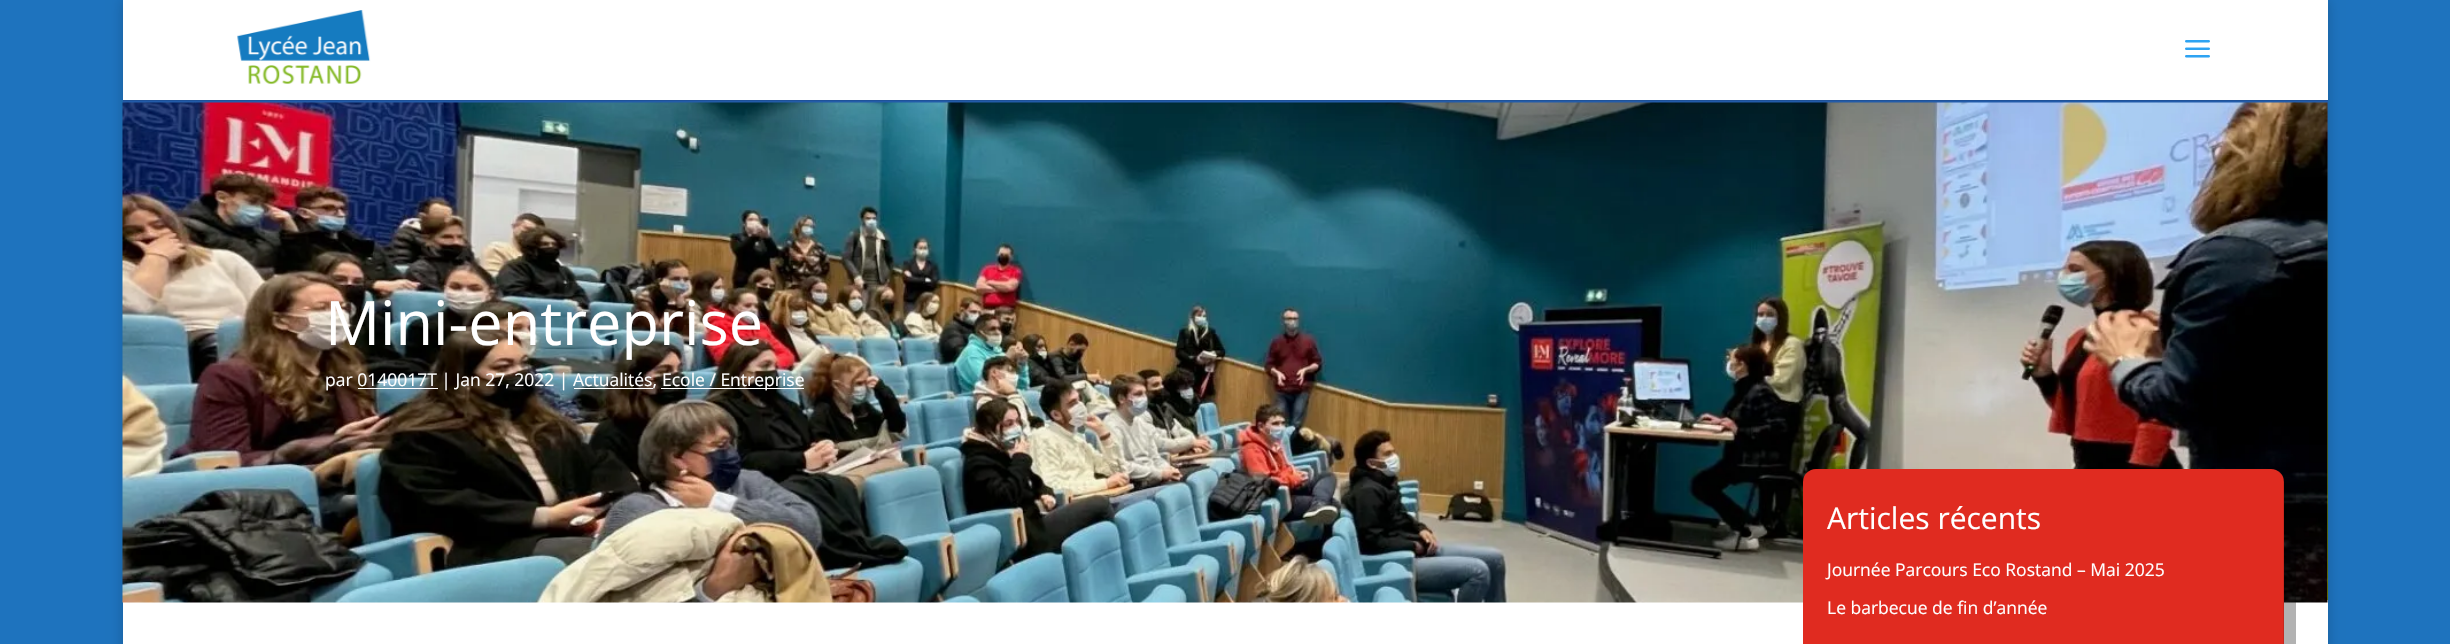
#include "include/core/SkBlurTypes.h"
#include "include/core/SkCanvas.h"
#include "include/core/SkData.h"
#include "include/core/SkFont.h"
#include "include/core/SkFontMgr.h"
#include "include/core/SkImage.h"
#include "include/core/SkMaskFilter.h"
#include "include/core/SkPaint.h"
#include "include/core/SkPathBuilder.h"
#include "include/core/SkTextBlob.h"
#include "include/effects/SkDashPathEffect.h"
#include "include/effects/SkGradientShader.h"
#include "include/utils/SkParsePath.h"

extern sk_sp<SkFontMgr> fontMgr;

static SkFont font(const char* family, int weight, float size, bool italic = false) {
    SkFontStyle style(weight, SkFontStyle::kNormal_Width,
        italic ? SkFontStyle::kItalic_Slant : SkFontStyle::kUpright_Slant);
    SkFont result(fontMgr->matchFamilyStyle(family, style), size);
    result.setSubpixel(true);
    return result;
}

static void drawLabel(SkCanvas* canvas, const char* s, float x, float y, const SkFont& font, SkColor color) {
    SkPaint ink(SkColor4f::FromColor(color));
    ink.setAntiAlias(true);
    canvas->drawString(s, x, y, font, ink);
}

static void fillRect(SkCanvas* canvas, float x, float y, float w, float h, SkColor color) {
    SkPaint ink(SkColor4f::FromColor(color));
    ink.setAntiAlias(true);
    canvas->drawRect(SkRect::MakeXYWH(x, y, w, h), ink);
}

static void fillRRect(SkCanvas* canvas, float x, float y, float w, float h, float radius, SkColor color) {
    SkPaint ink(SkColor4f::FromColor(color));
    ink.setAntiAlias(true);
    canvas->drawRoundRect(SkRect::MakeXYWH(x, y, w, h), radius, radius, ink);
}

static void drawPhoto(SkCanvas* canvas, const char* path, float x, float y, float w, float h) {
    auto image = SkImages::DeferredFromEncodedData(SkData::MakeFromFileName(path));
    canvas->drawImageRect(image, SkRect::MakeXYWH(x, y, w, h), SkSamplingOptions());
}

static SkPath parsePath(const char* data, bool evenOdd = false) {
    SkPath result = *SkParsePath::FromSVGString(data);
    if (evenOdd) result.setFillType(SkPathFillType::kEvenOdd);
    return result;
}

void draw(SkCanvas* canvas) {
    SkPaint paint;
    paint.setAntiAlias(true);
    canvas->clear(0xFF1E73BE);
    paint.setColor(0x33000000);
    paint.setMaskFilter(SkMaskFilter::MakeBlur(kNormal_SkBlurStyle, 6));
    canvas->drawRect(SkRect::MakeXYWH(123, 0, 2205, 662), paint);
    paint.setMaskFilter(nullptr);
    paint.setColor(0xFF1F5299);
    canvas->drawPath(parsePath("M123 100V101H2328V1V100Z"), paint);
    fillRect(canvas, 123, 0, 2205, 100, 0xFFFFFFFF);
    drawPhoto(canvas, "assets/img1.png", 237, 10, 134, 75);
    drawPhoto(canvas, "assets/img2.png", 2185, 40, 25, 18);
    fillRect(canvas, 123, 600, 2205, 44, 0xFFFFFFFF);
    {
        const SkColor colors[] = {0xFF225BAA, 0xFFADCC00};
        const float stops[] = {0, 1};
        const SkPoint ends[] = {{1225, 100}, {1225, 600}};
        paint.setShader(SkGradientShader::MakeLinear(ends, colors, stops, 2, SkTileMode::kClamp));
        paint.setAlpha(255);
    }
    canvas->drawRect(SkRect::MakeXYWH(123, 101, 2205, 499), paint);
    drawPhoto(canvas, "assets/img3.png", 122, 102, 2206, 501);
    SkFont font1 = font("Open Sans", 400, 61.25f);
    drawLabel(canvas, "Mini-entreprise", 325, 345, font1, 0xFFFFFFFF);
    SkFont font2 = font("Open Sans", 400, 17.5f);
    drawLabel(canvas, "par 0140017T | Jan 27, 2022 | Actualités,", 325, 386, font2, 0xFFFFFFFF);
    fillRect(canvas, 661, 388, 143, 1, 0xFFFFFFFF);
    drawLabel(canvas, "Ecole / Entreprise", 662, 386, font2, 0xFFFFFFFF);
    fillRect(canvas, 358, 388, 80, 1, 0xFFFFFFFF);
    fillRect(canvas, 574, 388, 79, 1, 0xFFFFFFFF);
    paint.setShader(nullptr);
    paint.setColor(0x4D000000);
    canvas->drawPath(parsePath("M1815 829C1815 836 1821 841 1828 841H2283C2290 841 2296 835 2296 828V494C2296 487 2291 481 2284 481V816C2284 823 2278 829 2271 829Z"), paint);
    fillRRect(canvas, 1803, 469, 481, 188, 13, 0xFFE02B20);
    fillRect(canvas, 2283, 475, 1, 169, 0x1A000000);
    SkFont font3 = font("Open Sans", 400, 30);
    drawLabel(canvas, "Articles récents", 1827, 529, font3, 0xFFFFFFFF);
    drawLabel(canvas, "Journée Parcours Eco Rostand – Mai 2025", 1827, 576, font2, 0xFFFFFFFF);
    drawLabel(canvas, "Le barbecue de fin d’année", 1827, 614, font2, 0xFFFFFFFF);
}
